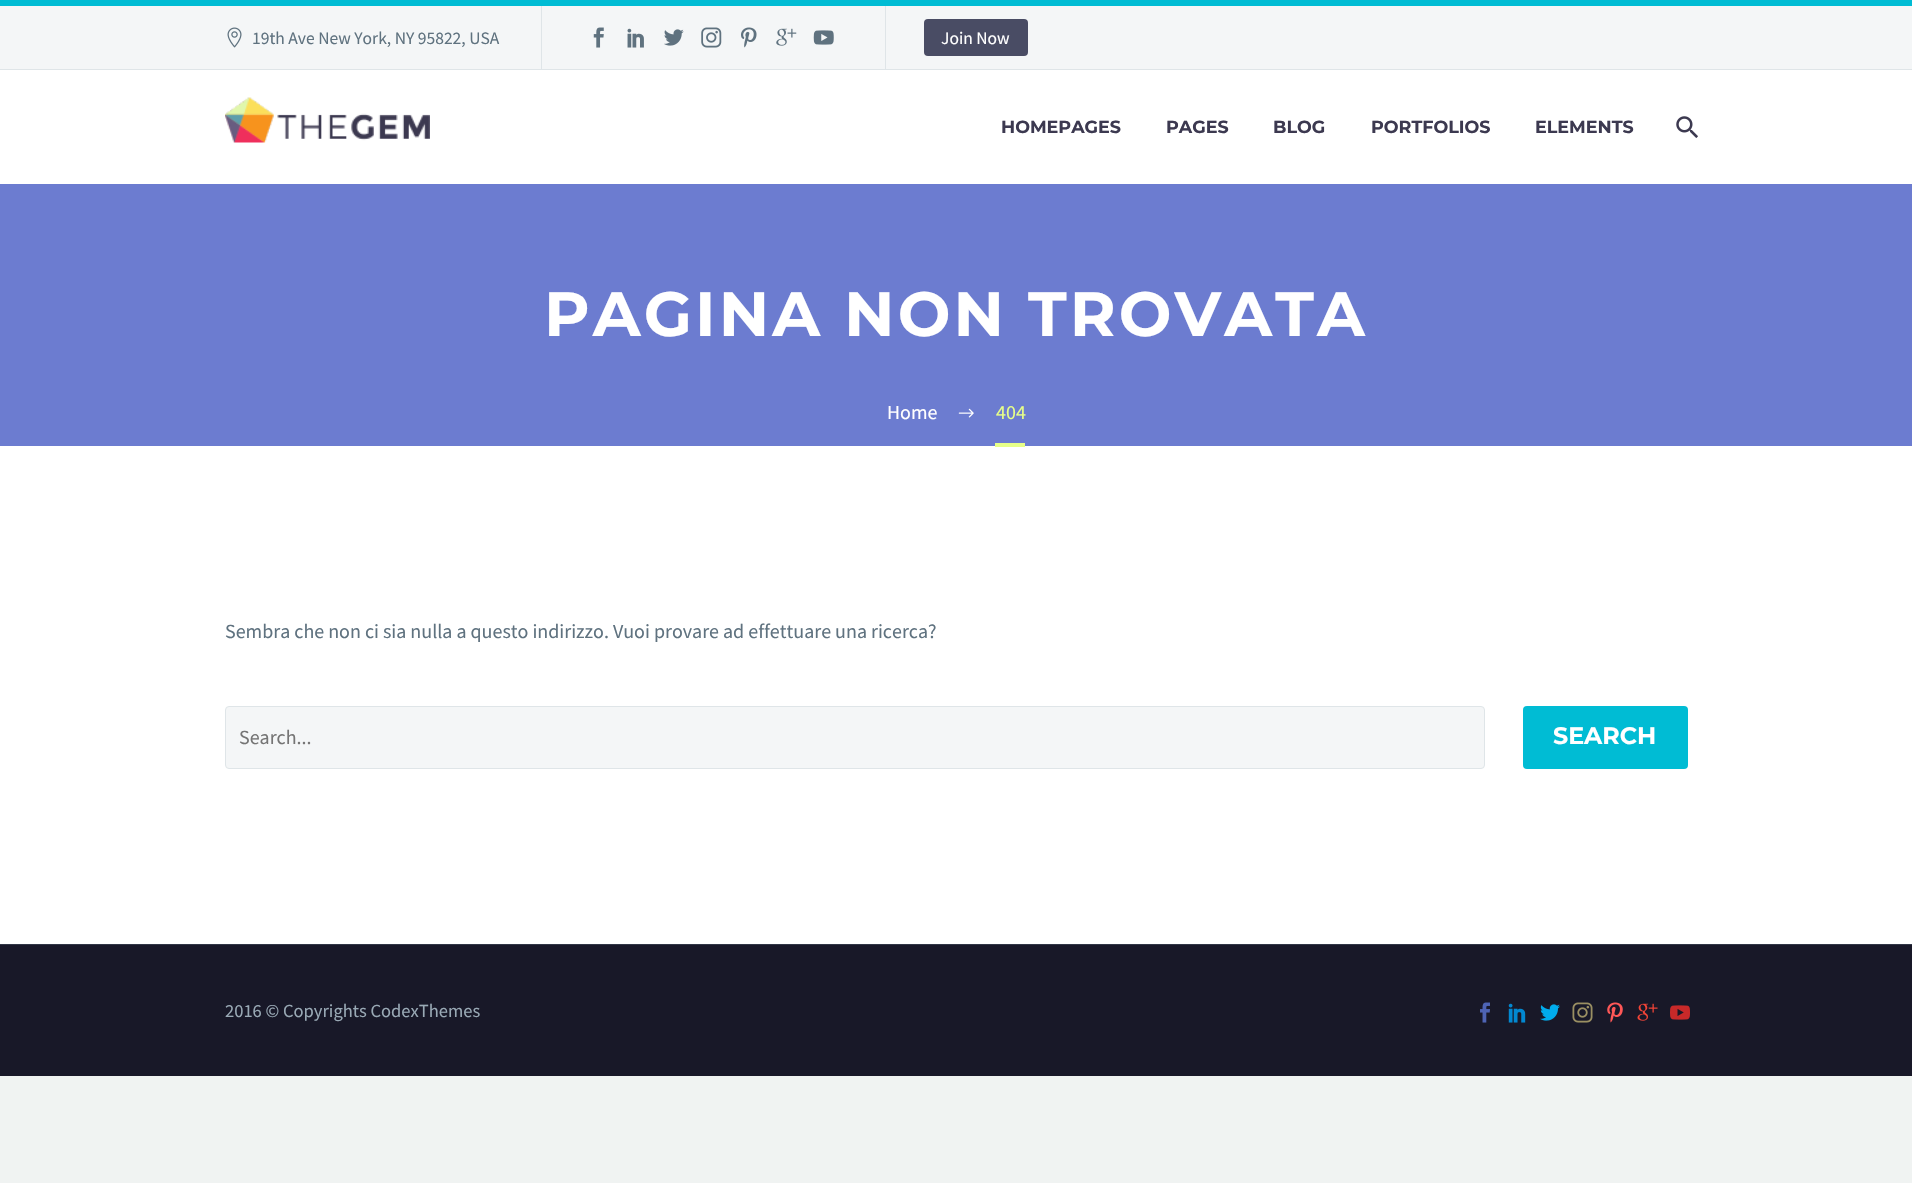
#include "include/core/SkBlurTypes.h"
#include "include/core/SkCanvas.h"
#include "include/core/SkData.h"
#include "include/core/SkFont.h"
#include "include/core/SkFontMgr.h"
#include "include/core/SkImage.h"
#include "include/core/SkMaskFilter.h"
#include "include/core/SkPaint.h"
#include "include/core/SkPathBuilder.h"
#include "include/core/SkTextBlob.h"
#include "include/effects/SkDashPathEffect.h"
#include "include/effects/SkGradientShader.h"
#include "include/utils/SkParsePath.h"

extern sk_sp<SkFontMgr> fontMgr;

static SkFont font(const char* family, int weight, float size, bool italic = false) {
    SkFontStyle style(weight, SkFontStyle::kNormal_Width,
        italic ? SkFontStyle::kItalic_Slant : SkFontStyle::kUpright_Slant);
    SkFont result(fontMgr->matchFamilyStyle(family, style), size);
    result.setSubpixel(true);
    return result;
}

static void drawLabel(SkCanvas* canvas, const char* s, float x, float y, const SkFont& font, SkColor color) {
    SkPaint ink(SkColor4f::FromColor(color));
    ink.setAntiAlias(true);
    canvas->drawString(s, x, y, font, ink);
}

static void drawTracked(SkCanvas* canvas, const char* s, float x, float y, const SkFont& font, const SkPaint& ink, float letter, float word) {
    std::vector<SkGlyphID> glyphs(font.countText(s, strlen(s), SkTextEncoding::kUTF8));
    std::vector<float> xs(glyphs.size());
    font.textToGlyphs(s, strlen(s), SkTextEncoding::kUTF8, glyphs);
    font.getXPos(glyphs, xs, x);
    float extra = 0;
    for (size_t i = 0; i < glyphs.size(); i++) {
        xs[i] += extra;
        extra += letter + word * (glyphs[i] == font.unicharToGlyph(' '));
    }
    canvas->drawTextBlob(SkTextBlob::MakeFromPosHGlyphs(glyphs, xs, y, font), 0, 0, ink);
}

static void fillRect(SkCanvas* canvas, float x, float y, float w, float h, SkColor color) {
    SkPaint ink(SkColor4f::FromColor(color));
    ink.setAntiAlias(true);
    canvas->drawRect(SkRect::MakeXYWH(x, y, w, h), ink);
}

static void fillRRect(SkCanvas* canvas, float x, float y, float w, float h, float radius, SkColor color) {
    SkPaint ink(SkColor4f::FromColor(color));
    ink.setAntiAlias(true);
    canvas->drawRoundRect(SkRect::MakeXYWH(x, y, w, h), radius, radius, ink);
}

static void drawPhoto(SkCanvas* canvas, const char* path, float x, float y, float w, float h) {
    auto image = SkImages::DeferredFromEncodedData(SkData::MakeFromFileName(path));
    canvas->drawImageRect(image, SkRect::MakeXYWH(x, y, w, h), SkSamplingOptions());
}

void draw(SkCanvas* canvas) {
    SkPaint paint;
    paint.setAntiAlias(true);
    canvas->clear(0xFFF0F3F2);
    fillRect(canvas, 0, 6, 1912, 63, 0xFFF4F6F7);
    fillRect(canvas, 0, 0, 1912, 6, 0xFF00BCD4);
    fillRect(canvas, 0, 69, 1912, 1, 0xFFDFE5E8);
    drawPhoto(canvas, "assets/img1.png", 227, 27, 15, 21);
    SkFont font1 = font("Source Sans Pro", 400, 17.5f);
    drawLabel(canvas, "19th Ave New York, NY 95822, USA", 252, 44, font1, 0xFF5F727F);
    fillRect(canvas, 541, 6, 1, 63, 0xFFDFE5E8);
    drawPhoto(canvas, "assets/img2.png", 593, 27, 11, 21);
    drawPhoto(canvas, "assets/img3.png", 627, 28, 17, 20);
    drawPhoto(canvas, "assets/img4.png", 664, 29, 20, 17);
    drawPhoto(canvas, "assets/img5.png", 701, 27, 21, 21);
    drawPhoto(canvas, "assets/img6.png", 741, 27, 16, 21);
    drawPhoto(canvas, "assets/img7.png", 776, 28, 21, 18);
    drawPhoto(canvas, "assets/img8.png", 813, 30, 21, 15);
    fillRect(canvas, 885, 6, 1, 63, 0xFFDFE5E8);
    fillRRect(canvas, 924, 19, 104, 37, 4, 0xFF494C64);
    drawLabel(canvas, "Join Now", 941, 44, font1, 0xFFFFFFFF);
    fillRect(canvas, 0, 70, 1912, 114, 0xFFFFFFFF);
    drawPhoto(canvas, "assets/img9.png", 225, 97, 205, 46);
    SkFont font2 = font("Montserrat", 700, 17.5f);
    drawLabel(canvas, "HOMEPAGES", 1001, 133, font2, 0xFF3C3950);
    drawLabel(canvas, "PAGES", 1166, 133, font2, 0xFF3C3950);
    drawLabel(canvas, "BLOG", 1273, 133, font2, 0xFF3C3950);
    drawLabel(canvas, "PORTFOLIOS", 1371, 133, font2, 0xFF3C3950);
    drawLabel(canvas, "ELEMENTS", 1535, 133, font2, 0xFF3C3950);
    drawPhoto(canvas, "assets/img10.png", 1676, 116, 22, 22);
    fillRect(canvas, 0, 184, 1912, 262, 0xFF6C7CD0);
    SkFont font3 = font("Montserrat", 700, 62.5f);
    paint.setColor(0xFFFFFFFF);
    drawTracked(canvas, "PAGINA NON TROVATA", 544, 336, font3, paint, 3.1f, 0);
    SkFont font4 = font("Source Sans Pro", 400, 20);
    drawLabel(canvas, "Home", 887, 419, font4, 0xFFFFFFFF);
    drawPhoto(canvas, "assets/img11.png", 958, 408, 16, 10);
    fillRect(canvas, 0, 446, 1912, 498, 0xFFFFFFFF);
    fillRect(canvas, 995, 443, 30, 4, 0xFFE7FF89);
    drawLabel(canvas, "404", 996, 419, font4, 0xFFE7FF89);
    drawLabel(canvas, "Sembra che non ci sia nulla a questo indirizzo. Vuoi provare ad effettuare una ricerca?", 225, 638, font4, 0xFF5F727F);
    paint.setColor(0xFFF4F6F7);
    canvas->drawRoundRect(SkRect::MakeXYWH(225.5f, 706.5f, 1259, 62), 3.5f, 3.5f, paint);
    paint.setStroke(true);
    paint.setStrokeWidth(1);
    paint.setColor(0xFFDFE5E8);
    canvas->drawRoundRect(SkRect::MakeXYWH(225.5f, 706.5f, 1259, 62), 3.5f, 3.5f, paint);
    drawLabel(canvas, "Search...", 239, 744, font4, 0xFF757575);
    fillRRect(canvas, 1523, 706, 165, 63, 4, 0xFF00BCD4);
    SkFont font5 = font("Montserrat", 700, 23.75f);
    drawLabel(canvas, "SEARCH", 1553, 744, font5, 0xFFFFFFFF);
    fillRect(canvas, 0, 945, 1912, 131, 0xFF181828);
    fillRect(canvas, 0, 944, 1912, 1, 0xFF313646);
    SkFont font6 = font("Source Sans Pro", 400, 18.5f);
    drawLabel(canvas, "2016 © Copyrights CodexThemes", 225, 1017, font6, 0xFF99A9B5);
    drawPhoto(canvas, "assets/img12.png", 1480, 1002, 10, 21);
    drawPhoto(canvas, "assets/img13.png", 1508, 1003, 18, 20);
    drawPhoto(canvas, "assets/img14.png", 1540, 1004, 20, 17);
    drawPhoto(canvas, "assets/img15.png", 1572, 1002, 21, 21);
    drawPhoto(canvas, "assets/img16.png", 1607, 1002, 16, 21);
    drawPhoto(canvas, "assets/img17.png", 1637, 1003, 21, 18);
    drawPhoto(canvas, "assets/img18.png", 1670, 1005, 20, 15);
}
